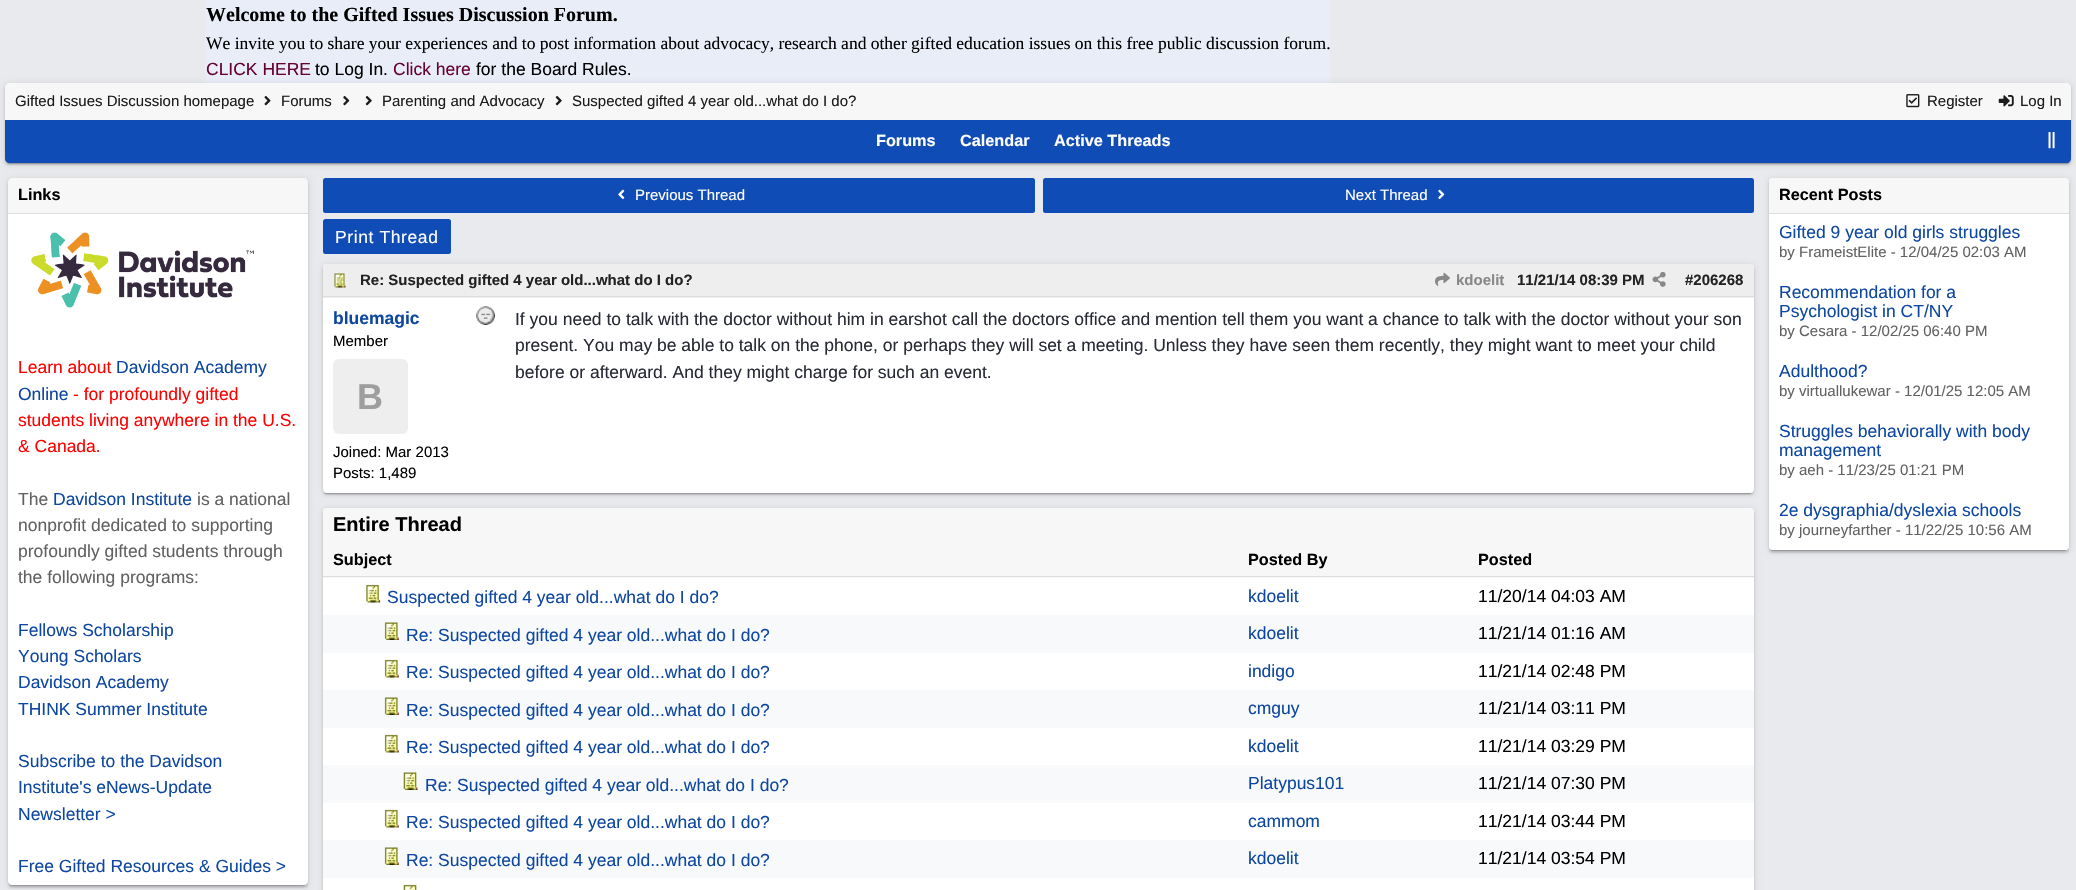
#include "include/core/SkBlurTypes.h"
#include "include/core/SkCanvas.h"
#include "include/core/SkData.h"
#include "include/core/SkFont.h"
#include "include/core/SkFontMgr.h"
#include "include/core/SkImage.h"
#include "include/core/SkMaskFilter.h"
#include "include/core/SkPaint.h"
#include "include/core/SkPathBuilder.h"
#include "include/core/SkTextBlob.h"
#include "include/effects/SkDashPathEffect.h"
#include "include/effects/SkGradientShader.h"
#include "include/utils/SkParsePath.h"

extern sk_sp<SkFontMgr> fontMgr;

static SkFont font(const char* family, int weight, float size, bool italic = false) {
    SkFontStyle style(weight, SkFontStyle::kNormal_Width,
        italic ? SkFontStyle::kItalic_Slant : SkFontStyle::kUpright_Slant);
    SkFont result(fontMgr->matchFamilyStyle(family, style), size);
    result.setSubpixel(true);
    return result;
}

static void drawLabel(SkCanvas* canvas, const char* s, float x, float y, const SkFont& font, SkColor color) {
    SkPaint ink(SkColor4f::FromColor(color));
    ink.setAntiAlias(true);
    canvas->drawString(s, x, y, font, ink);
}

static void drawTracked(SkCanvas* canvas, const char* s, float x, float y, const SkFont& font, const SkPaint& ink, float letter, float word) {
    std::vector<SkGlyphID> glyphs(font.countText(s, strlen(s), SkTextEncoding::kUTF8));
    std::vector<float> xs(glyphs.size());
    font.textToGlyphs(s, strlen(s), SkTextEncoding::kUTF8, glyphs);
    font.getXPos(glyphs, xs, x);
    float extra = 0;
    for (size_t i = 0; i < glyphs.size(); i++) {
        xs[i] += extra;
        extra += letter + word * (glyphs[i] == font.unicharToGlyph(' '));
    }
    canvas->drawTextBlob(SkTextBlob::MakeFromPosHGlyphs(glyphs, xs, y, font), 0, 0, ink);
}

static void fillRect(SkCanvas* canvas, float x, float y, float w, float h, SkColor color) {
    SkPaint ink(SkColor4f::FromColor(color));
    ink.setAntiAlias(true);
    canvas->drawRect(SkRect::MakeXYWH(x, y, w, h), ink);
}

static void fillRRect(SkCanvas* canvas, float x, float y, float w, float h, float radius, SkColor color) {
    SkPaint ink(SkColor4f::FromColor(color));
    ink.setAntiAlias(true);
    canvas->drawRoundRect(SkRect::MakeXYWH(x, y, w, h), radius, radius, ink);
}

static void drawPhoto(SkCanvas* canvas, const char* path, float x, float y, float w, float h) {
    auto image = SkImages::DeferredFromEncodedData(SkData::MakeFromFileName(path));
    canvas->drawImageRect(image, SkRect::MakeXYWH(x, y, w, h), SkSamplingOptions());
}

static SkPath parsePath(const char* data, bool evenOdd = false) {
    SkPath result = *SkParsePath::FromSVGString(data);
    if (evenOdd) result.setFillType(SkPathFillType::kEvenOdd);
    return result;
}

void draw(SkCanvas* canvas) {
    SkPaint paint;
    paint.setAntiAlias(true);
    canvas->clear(0xFFE8EAED);
    fillRect(canvas, 205, 0, 1125, 83, 0xFFE9EDF8);
    SkFont font1 = font("Liberation Serif", 700, 20);
    drawLabel(canvas, "Welcome to the Gifted Issues Discussion Forum.", 206, 21, font1, 0xFF000000);
    SkFont font2 = font("Liberation Serif", 400, 17.5f);
    drawLabel(canvas, "We invite you to share your experiences and to post information about advocacy, research and other gifted education issues on this free public discussion forum.", 206, 49, font2, 0xFF000000);
    SkFont font3 = font("Liberation Sans", 400, 17.5f);
    drawLabel(canvas, "CLICK HERE", 206, 75, font3, 0xFF660033);
    drawLabel(canvas, "to Log In.", 315, 75, font3, 0xFF000000);
    drawLabel(canvas, "Click here", 393, 75, font3, 0xFF660033);
    drawLabel(canvas, "for the Board Rules.", 476, 75, font3, 0xFF000000);
    paint.setColor(0x33000000);
    paint.setMaskFilter(SkMaskFilter::MakeBlur(kNormal_SkBlurStyle, 0.5f));
    canvas->drawRoundRect(SkRect::MakeXYWH(8, 89, 2061, 75), 1, 1, paint);
    paint.setMaskFilter(nullptr);
    paint.setColor(0x1F000000);
    paint.setMaskFilter(SkMaskFilter::MakeBlur(kNormal_SkBlurStyle, 3));
    canvas->drawRoundRect(SkRect::MakeXYWH(5, 84, 2066, 80), 4, 4, paint);
    paint.setMaskFilter(nullptr);
    paint.setColor(0x24000000);
    paint.setMaskFilter(SkMaskFilter::MakeBlur(kNormal_SkBlurStyle, 1));
    canvas->drawRoundRect(SkRect::MakeXYWH(5, 85, 2066, 80), 4, 4, paint);
    paint.setMaskFilter(nullptr);
    paint.setColor(0xFFF7F7F7);
    canvas->drawPath(parsePath("M9 83H2067C2069 83 2071 85 2071 87V120H5V87C5 85 7 83 9 83Z"), paint);
    SkFont font4 = font("Liberation Sans", 400, 15);
    drawLabel(canvas, "Gifted Issues Discussion homepage", 15, 106, font4, 0xFF1B1B1B);
    drawPhoto(canvas, "assets/img1.png", 264, 96, 7, 10);
    drawLabel(canvas, "Forums", 281, 106, font4, 0xFF1B1B1B);
    drawPhoto(canvas, "assets/img2.png", 343, 96, 7, 10);
    drawPhoto(canvas, "assets/img3.png", 365, 96, 7, 10);
    drawLabel(canvas, "Parenting and Advocacy", 382, 106, font4, 0xFF1B1B1B);
    drawPhoto(canvas, "assets/img3.png", 555, 96, 7, 10);
    drawLabel(canvas, "Suspected gifted 4 year old...what do I do?", 572, 106, font4, 0xFF1B1B1B);
    drawPhoto(canvas, "assets/img4.png", 1906, 94, 14, 14);
    drawLabel(canvas, "Register", 1927, 106, font4, 0xFF1B1B1B);
    drawPhoto(canvas, "assets/img5.png", 1998, 95, 16, 12);
    drawLabel(canvas, "Log In", 2020, 106, font4, 0xFF1B1B1B);
    paint.setColor(0xFF104CB5);
    canvas->drawPath(parsePath("M5 120H2071V159C2071 161 2069 163 2067 163H9C7 163 5 161 5 159Z"), paint);
    SkFont font5 = font("Liberation Sans", 700, 16.25f);
    drawLabel(canvas, "Forums", 876, 146, font5, 0xFFFFFFFF);
    drawLabel(canvas, "Calendar", 960, 146, font5, 0xFFFFFFFF);
    drawLabel(canvas, "Active Threads", 1054, 146, font5, 0xFFFFFFFF);
    drawPhoto(canvas, "assets/img6.png", 2048, 132, 7, 17);
    paint.setColor(0x33000000);
    paint.setMaskFilter(SkMaskFilter::MakeBlur(kNormal_SkBlurStyle, 0.5f));
    canvas->drawRoundRect(SkRect::MakeXYWH(10, 184, 295, 702), 1, 1, paint);
    paint.setMaskFilter(nullptr);
    paint.setColor(0x1F000000);
    paint.setMaskFilter(SkMaskFilter::MakeBlur(kNormal_SkBlurStyle, 3));
    canvas->drawRoundRect(SkRect::MakeXYWH(8, 179, 300, 707), 4, 4, paint);
    paint.setMaskFilter(nullptr);
    paint.setColor(0x24000000);
    paint.setMaskFilter(SkMaskFilter::MakeBlur(kNormal_SkBlurStyle, 1));
    canvas->drawRoundRect(SkRect::MakeXYWH(8, 180, 300, 708), 4, 4, paint);
    paint.setMaskFilter(nullptr);
    paint.setColor(0xFFF7F7F7);
    canvas->drawPath(parsePath("M12 178H304C306 178 308 180 308 182V214H8V182C8 180 10 178 12 178Z"), paint);
    fillRect(canvas, 8, 213, 300, 1, 0xFFDDDDDD);
    drawLabel(canvas, "Links", 18, 200, font5, 0xFF000000);
    paint.setColor(0xFFFFFFFF);
    canvas->drawPath(parsePath("M8 214H308V881C308 883 306 885 304 885H12C10 885 8 883 8 881Z"), paint);
    drawPhoto(canvas, "assets/img7.png", 31, 232, 223, 76);
    drawLabel(canvas, "Learn about", 18, 373, font3, 0xFFFF0000);
    drawLabel(canvas, "Davidson Academy", 116, 373, font3, 0xFF0D47A1);
    drawLabel(canvas, "Online", 18, 400, font3, 0xFF0D47A1);
    drawLabel(canvas, "- for profoundly gifted", 73, 400, font3, 0xFFFF0000);
    drawLabel(canvas, "students living anywhere in the U.S.", 18, 426, font3, 0xFFFF0000);
    drawLabel(canvas, "& Canada.", 18, 452, font3, 0xFFFF0000);
    drawLabel(canvas, "The", 18, 505, font3, 0xFF616161);
    drawLabel(canvas, "Davidson Institute", 53, 505, font3, 0xFF0D47A1);
    drawLabel(canvas, "is a national", 197, 505, font3, 0xFF616161);
    drawLabel(canvas, "nonprofit dedicated to supporting", 18, 531, font3, 0xFF616161);
    drawLabel(canvas, "profoundly gifted students through", 18, 557, font3, 0xFF616161);
    drawLabel(canvas, "the following programs:", 18, 583, font3, 0xFF616161);
    drawLabel(canvas, "Fellows Scholarship", 18, 636, font3, 0xFF0D47A1);
    drawLabel(canvas, "Young Scholars", 18, 662, font3, 0xFF0D47A1);
    drawLabel(canvas, "Davidson Academy", 18, 688, font3, 0xFF0D47A1);
    drawLabel(canvas, "THINK Summer Institute", 18, 715, font3, 0xFF0D47A1);
    drawLabel(canvas, "Subscribe to the Davidson", 18, 767, font3, 0xFF0D47A1);
    drawLabel(canvas, "Institute's eNews-Update", 18, 793, font3, 0xFF0D47A1);
    drawLabel(canvas, "Newsletter >", 18, 820, font3, 0xFF0D47A1);
    drawLabel(canvas, "Free Gifted Resources & Guides >", 18, 872, font3, 0xFF0D47A1);
    fillRRect(canvas, 323, 178, 712, 35, 2.5f, 0xFF104CB5);
    drawPhoto(canvas, "assets/img8.png", 618, 189, 7, 10);
    drawLabel(canvas, "Previous Thread", 635, 200, font4, 0xFFFFFFFF);
    fillRRect(canvas, 1043, 178, 711, 35, 2.5f, 0xFF104CB5);
    drawLabel(canvas, "Next Thread", 1345, 200, font4, 0xFFFFFFFF);
    drawPhoto(canvas, "assets/img9.png", 1438, 189, 7, 10);
    fillRRect(canvas, 323, 219, 128, 35, 2.5f, 0xFF104CB5);
    drawTracked(canvas, "Print Thread", 335, 243, font3, paint, 0.6f, 0);
    paint.setColor(0x33000000);
    paint.setMaskFilter(SkMaskFilter::MakeBlur(kNormal_SkBlurStyle, 0.5f));
    canvas->drawRoundRect(SkRect::MakeXYWH(325, 270, 1426, 224), 1, 1, paint);
    paint.setMaskFilter(nullptr);
    paint.setColor(0x1F000000);
    paint.setMaskFilter(SkMaskFilter::MakeBlur(kNormal_SkBlurStyle, 3));
    canvas->drawRoundRect(SkRect::MakeXYWH(323, 265, 1431, 229), 4, 4, paint);
    paint.setMaskFilter(nullptr);
    paint.setColor(0x24000000);
    paint.setMaskFilter(SkMaskFilter::MakeBlur(kNormal_SkBlurStyle, 1));
    canvas->drawRoundRect(SkRect::MakeXYWH(323, 266, 1431, 229), 4, 4, paint);
    paint.setMaskFilter(nullptr);
    fillRRect(canvas, 323, 264, 1431, 229, 4, 0xFFFFFFFF);
    paint.setColor(0xFFEEEEEE);
    canvas->drawPath(parsePath("M327 264H1750C1752 264 1754 266 1754 268V298H323V268C323 266 325 264 327 264Z"), paint);
    fillRect(canvas, 323, 296, 1431, 1, 0xFFDDDDDD);
    drawPhoto(canvas, "assets/img10.png", 334, 273, 12, 15);
    SkFont font6 = font("Liberation Sans", 700, 15);
    drawLabel(canvas, "Re: Suspected gifted 4 year old...what do I do?", 360, 285, font6, 0xFF222222);
    drawPhoto(canvas, "assets/img11.png", 1435, 272, 15, 14);
    drawLabel(canvas, "kdoelit", 1456, 285, font6, 0xFF888888);
    drawLabel(canvas, "11/21/14 08:39 PM", 1517, 285, font6, 0xFF222222);
    drawPhoto(canvas, "assets/img12.png", 1652, 271, 14, 16);
    drawLabel(canvas, "#206268", 1685, 285, font6, 0xFF222222);
    SkFont font7 = font("Liberation Sans", 700, 17.5f);
    drawLabel(canvas, "bluemagic", 333, 324, font7, 0xFF0D47A1);
    drawPhoto(canvas, "assets/img13.png", 476, 306, 19, 19);
    drawLabel(canvas, "Member", 333, 346, font4, 0xFF000000);
    fillRRect(canvas, 333, 359, 75, 75, 6, 0xFFEEEEEE);
    SkFont font8 = font("Liberation Sans", 700, 36);
    drawLabel(canvas, "B", 357, 409, font8, 0xFF9E9E9E);
    drawLabel(canvas, "Joined: Mar 2013", 333, 457, font4, 0xFF000000);
    drawLabel(canvas, "Posts: 1,489", 333, 478, font4, 0xFF000000);
    drawLabel(canvas, "If you need to talk with the doctor without him in earshot call the doctors office and mention tell them you want a chance to talk with the doctor without your son", 515, 325, font3, 0xFF272A34);
    drawLabel(canvas, "present. You may be able to talk on the phone, or perhaps they will set a meeting. Unless they have seen them recently, they might want to meet your child", 515, 351, font3, 0xFF272A34);
    drawLabel(canvas, "before or afterward. And they might charge for such an event.", 515, 378, font3, 0xFF272A34);
    paint.setColor(0x1F000000);
    paint.setMaskFilter(SkMaskFilter::MakeBlur(kNormal_SkBlurStyle, 3));
    canvas->drawRoundRect(SkRect::MakeXYWH(323, 509, 1431, 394), 4, 4, paint);
    paint.setMaskFilter(nullptr);
    paint.setColor(0x24000000);
    paint.setMaskFilter(SkMaskFilter::MakeBlur(kNormal_SkBlurStyle, 1));
    canvas->drawRoundRect(SkRect::MakeXYWH(323, 510, 1431, 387), 4, 4, paint);
    paint.setMaskFilter(nullptr);
    fillRRect(canvas, 323, 508, 1431, 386, 4, 0xFFFFFFFF);
    paint.setColor(0xFFF7F7F7);
    canvas->drawPath(parsePath("M327 508H1750C1752 508 1754 510 1754 512V543H323V512C323 510 325 508 327 508Z"), paint);
    SkFont font9 = font("Liberation Sans", 700, 20);
    drawLabel(canvas, "Entire Thread", 333, 531, font9, 0xFF000000);
    fillRect(canvas, 323, 543, 1431, 35, 0xFFF7F7F7);
    fillRect(canvas, 323, 576, 1431, 1, 0xFFDDDDDD);
    drawLabel(canvas, "Subject", 333, 565, font5, 0xFF000000);
    drawLabel(canvas, "Posted By", 1248, 565, font5, 0xFF000000);
    drawLabel(canvas, "Posted", 1478, 565, font5, 0xFF000000);
    drawPhoto(canvas, "assets/img14.png", 366, 584, 15, 19);
    drawLabel(canvas, "Suspected gifted 4 year old...what do I do?", 387, 603, font3, 0xFF0D47A1);
    drawLabel(canvas, "kdoelit", 1248, 602, font3, 0xFF0D47A1);
    drawLabel(canvas, "11/20/14 04:03 AM", 1478, 602, font3, 0xFF000000);
    fillRect(canvas, 323, 615, 1431, 38, 0xFFF7F9FA);
    drawPhoto(canvas, "assets/img15.png", 384, 622, 15, 18);
    drawLabel(canvas, "Re: Suspected gifted 4 year old...what do I do?", 406, 641, font3, 0xFF0D47A1);
    drawLabel(canvas, "kdoelit", 1248, 639, font3, 0xFF0D47A1);
    drawLabel(canvas, "11/21/14 01:16 AM", 1478, 639, font3, 0xFF000000);
    drawPhoto(canvas, "assets/img16.png", 384, 659, 15, 19);
    drawLabel(canvas, "Re: Suspected gifted 4 year old...what do I do?", 406, 678, font3, 0xFF0D47A1);
    drawLabel(canvas, "indigo", 1248, 677, font3, 0xFF0D47A1);
    drawLabel(canvas, "11/21/14 02:48 PM", 1478, 677, font3, 0xFF000000);
    fillRect(canvas, 323, 690, 1431, 38, 0xFFF7F9FA);
    drawPhoto(canvas, "assets/img15.png", 384, 697, 15, 18);
    drawLabel(canvas, "Re: Suspected gifted 4 year old...what do I do?", 406, 716, font3, 0xFF0D47A1);
    drawLabel(canvas, "cmguy", 1248, 714, font3, 0xFF0D47A1);
    drawLabel(canvas, "11/21/14 03:11 PM", 1478, 714, font3, 0xFF000000);
    drawPhoto(canvas, "assets/img16.png", 384, 734, 15, 19);
    drawLabel(canvas, "Re: Suspected gifted 4 year old...what do I do?", 406, 753, font3, 0xFF0D47A1);
    drawLabel(canvas, "kdoelit", 1248, 752, font3, 0xFF0D47A1);
    drawLabel(canvas, "11/21/14 03:29 PM", 1478, 752, font3, 0xFF000000);
    fillRect(canvas, 323, 765, 1431, 38, 0xFFF7F9FA);
    drawPhoto(canvas, "assets/img17.png", 403, 772, 15, 18);
    drawLabel(canvas, "Re: Suspected gifted 4 year old...what do I do?", 425, 791, font3, 0xFF0D47A1);
    drawLabel(canvas, "Platypus101", 1248, 789, font3, 0xFF0D47A1);
    drawLabel(canvas, "11/21/14 07:30 PM", 1478, 789, font3, 0xFF000000);
    drawPhoto(canvas, "assets/img16.png", 384, 809, 15, 19);
    drawLabel(canvas, "Re: Suspected gifted 4 year old...what do I do?", 406, 828, font3, 0xFF0D47A1);
    drawLabel(canvas, "cammom", 1248, 827, font3, 0xFF0D47A1);
    drawLabel(canvas, "11/21/14 03:44 PM", 1478, 827, font3, 0xFF000000);
    fillRect(canvas, 323, 840, 1431, 38, 0xFFF7F9FA);
    drawPhoto(canvas, "assets/img15.png", 384, 847, 15, 18);
    drawLabel(canvas, "Re: Suspected gifted 4 year old...what do I do?", 406, 866, font3, 0xFF0D47A1);
    drawLabel(canvas, "kdoelit", 1248, 864, font3, 0xFF0D47A1);
    drawLabel(canvas, "11/21/14 03:54 PM", 1478, 864, font3, 0xFF000000);
    drawPhoto(canvas, "assets/img18.png", 403, 884, 14, 6);
    paint.setColor(0x33000000);
    paint.setMaskFilter(SkMaskFilter::MakeBlur(kNormal_SkBlurStyle, 0.5f));
    canvas->drawRoundRect(SkRect::MakeXYWH(1771, 184, 295, 367), 1, 1, paint);
    paint.setMaskFilter(nullptr);
    paint.setColor(0x1F000000);
    paint.setMaskFilter(SkMaskFilter::MakeBlur(kNormal_SkBlurStyle, 3));
    canvas->drawRoundRect(SkRect::MakeXYWH(1769, 179, 300, 372), 4, 4, paint);
    paint.setMaskFilter(nullptr);
    paint.setColor(0x24000000);
    paint.setMaskFilter(SkMaskFilter::MakeBlur(kNormal_SkBlurStyle, 1));
    canvas->drawRoundRect(SkRect::MakeXYWH(1769, 180, 300, 373), 4, 4, paint);
    paint.setMaskFilter(nullptr);
    fillRRect(canvas, 1769, 178, 300, 372, 4, 0xFFFFFFFF);
    paint.setColor(0xFFF7F7F7);
    canvas->drawPath(parsePath("M1773 178H2065C2067 178 2069 180 2069 182V214H1769V182C1769 180 1771 178 1773 178Z"), paint);
    fillRect(canvas, 1769, 213, 300, 1, 0xFFDDDDDD);
    drawLabel(canvas, "Recent Posts", 1779, 200, font5, 0xFF000000);
    drawLabel(canvas, "Gifted 9 year old girls struggles", 1779, 238, font3, 0xFF0D47A1);
    drawLabel(canvas, "by FrameistElite - 12/04/25 02:03 AM", 1779, 257, font4, 0xFF616161);
    drawLabel(canvas, "Recommendation for a", 1779, 298, font3, 0xFF0D47A1);
    drawLabel(canvas, "Psychologist in CT/NY", 1779, 317, font3, 0xFF0D47A1);
    drawLabel(canvas, "by Cesara - 12/02/25 06:40 PM", 1779, 336, font4, 0xFF616161);
    drawLabel(canvas, "Adulthood?", 1779, 377, font3, 0xFF0D47A1);
    drawLabel(canvas, "by virtuallukewar - 12/01/25 12:05 AM", 1779, 396, font4, 0xFF616161);
    drawLabel(canvas, "Struggles behaviorally with body", 1779, 437, font3, 0xFF0D47A1);
    drawLabel(canvas, "management", 1779, 456, font3, 0xFF0D47A1);
    drawLabel(canvas, "by aeh - 11/23/25 01:21 PM", 1779, 475, font4, 0xFF616161);
    paint.setColor(0xFFFFFFFF);
    canvas->drawPath(parsePath("M1769 491H2069V546C2069 548 2067 550 2065 550H1773C1771 550 1769 548 1769 546Z"), paint);
    drawLabel(canvas, "2e dysgraphia/dyslexia schools", 1779, 516, font3, 0xFF0D47A1);
    drawLabel(canvas, "by journeyfarther - 11/22/25 10:56 AM", 1779, 535, font4, 0xFF616161);
}
